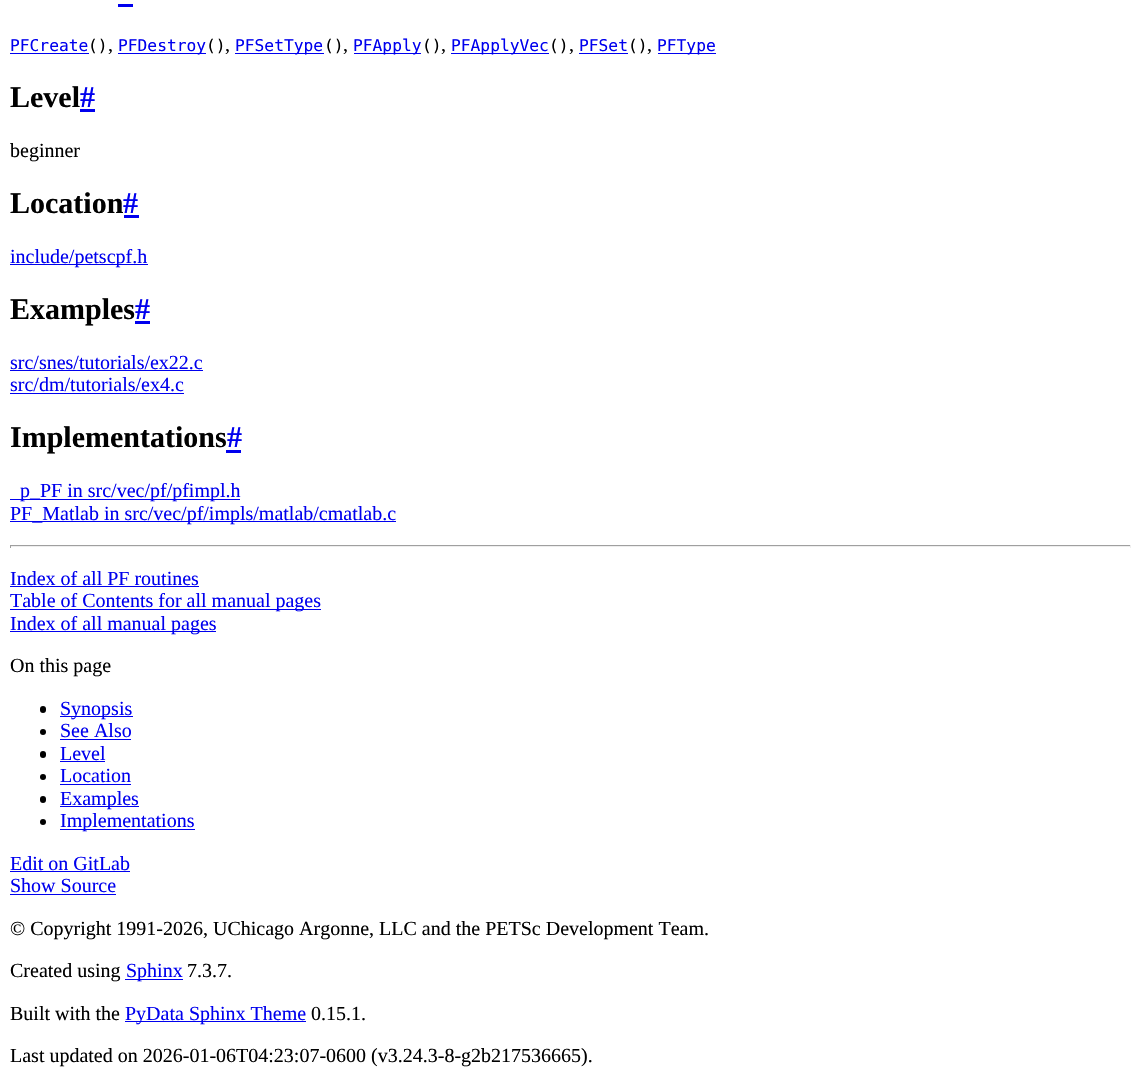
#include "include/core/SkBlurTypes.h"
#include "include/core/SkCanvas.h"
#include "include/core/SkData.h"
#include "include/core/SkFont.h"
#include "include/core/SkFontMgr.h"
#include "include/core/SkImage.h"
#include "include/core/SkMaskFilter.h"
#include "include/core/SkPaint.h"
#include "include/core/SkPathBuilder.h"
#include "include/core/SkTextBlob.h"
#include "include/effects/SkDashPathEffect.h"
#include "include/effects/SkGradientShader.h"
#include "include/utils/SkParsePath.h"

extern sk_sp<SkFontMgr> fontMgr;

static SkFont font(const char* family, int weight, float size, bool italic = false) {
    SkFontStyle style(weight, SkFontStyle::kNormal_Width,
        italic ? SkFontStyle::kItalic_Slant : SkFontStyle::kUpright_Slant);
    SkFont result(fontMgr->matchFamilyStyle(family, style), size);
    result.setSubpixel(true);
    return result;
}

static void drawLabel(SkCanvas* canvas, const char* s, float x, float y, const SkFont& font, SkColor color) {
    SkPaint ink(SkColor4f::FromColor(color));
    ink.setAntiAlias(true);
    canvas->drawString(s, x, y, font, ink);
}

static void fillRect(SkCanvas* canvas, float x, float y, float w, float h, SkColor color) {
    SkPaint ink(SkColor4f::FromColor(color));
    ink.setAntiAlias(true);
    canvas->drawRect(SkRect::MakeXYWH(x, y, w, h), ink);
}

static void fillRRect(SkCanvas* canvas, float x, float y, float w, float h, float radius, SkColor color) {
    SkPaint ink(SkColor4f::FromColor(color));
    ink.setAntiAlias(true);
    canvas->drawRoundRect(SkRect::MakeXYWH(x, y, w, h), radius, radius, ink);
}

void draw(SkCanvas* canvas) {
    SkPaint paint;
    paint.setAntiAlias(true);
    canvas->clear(0xFFFFFFFF);
    fillRect(canvas, 118, 4, 15, 3, 0xFF0000EE);
    SkFont font1 = font("DejaVu Sans Mono", 400, 16.25f);
    drawLabel(canvas, "PFCreate", 10, 51, font1, 0xFF0000EE);
    fillRect(canvas, 10, 53, 79, 1, 0xFF0000EE);
    drawLabel(canvas, "()", 88, 51, font1, 0xFF000000);
    SkFont font2 = font("Liberation Serif", 400, 20);
    drawLabel(canvas, ",", 108, 51, font2, 0xFF000000);
    fillRect(canvas, 118, 53, 88, 1, 0xFF0000EE);
    drawLabel(canvas, "PFDestroy", 118, 51, font1, 0xFF0000EE);
    drawLabel(canvas, "()", 206, 51, font1, 0xFF000000);
    drawLabel(canvas, ",", 225, 51, font2, 0xFF000000);
    fillRect(canvas, 235, 53, 89, 1, 0xFF0000EE);
    drawLabel(canvas, "PFSetType", 235, 51, font1, 0xFF0000EE);
    drawLabel(canvas, "()", 324, 51, font1, 0xFF000000);
    drawLabel(canvas, ",", 343, 51, font2, 0xFF000000);
    fillRect(canvas, 354, 53, 67, 1, 0xFF0000EE);
    drawLabel(canvas, "PFApply", 353, 51, font1, 0xFF0000EE);
    drawLabel(canvas, "()", 422, 51, font1, 0xFF000000);
    drawLabel(canvas, ",", 441, 51, font2, 0xFF000000);
    fillRect(canvas, 451, 53, 98, 1, 0xFF0000EE);
    drawLabel(canvas, "PFApplyVec", 451, 51, font1, 0xFF0000EE);
    drawLabel(canvas, "()", 549, 51, font1, 0xFF000000);
    drawLabel(canvas, ",", 569, 51, font2, 0xFF000000);
    drawLabel(canvas, "PFSet", 579, 51, font1, 0xFF0000EE);
    fillRect(canvas, 579, 53, 49, 1, 0xFF0000EE);
    drawLabel(canvas, "()", 628, 51, font1, 0xFF000000);
    drawLabel(canvas, ",", 647, 51, font2, 0xFF000000);
    fillRect(canvas, 658, 53, 58, 1, 0xFF0000EE);
    drawLabel(canvas, "PFType", 657, 51, font1, 0xFF0000EE);
    SkFont font3 = font("Liberation Serif", 700, 30);
    drawLabel(canvas, "Level", 10, 107, font3, 0xFF000000);
    drawLabel(canvas, "#", 80, 107, font3, 0xFF0000EE);
    fillRect(canvas, 80, 109, 15, 3, 0xFF0000EE);
    drawLabel(canvas, "beginner", 10, 157, font2, 0xFF000000);
    drawLabel(canvas, "Location", 10, 213, font3, 0xFF000000);
    drawLabel(canvas, "#", 123, 213, font3, 0xFF0000EE);
    fillRect(canvas, 124, 215, 15, 3, 0xFF0000EE);
    fillRect(canvas, 10, 264, 138, 1, 0xFF0000EE);
    drawLabel(canvas, "include/petscpf.h", 10, 263, font2, 0xFF0000EE);
    drawLabel(canvas, "Examples", 10, 319, font3, 0xFF000000);
    drawLabel(canvas, "#", 135, 319, font3, 0xFF0000EE);
    fillRect(canvas, 135, 321, 15, 3, 0xFF0000EE);
    drawLabel(canvas, "src/snes/tutorials/ex22.c", 10, 369, font2, 0xFF0000EE);
    fillRect(canvas, 10, 370, 193, 1, 0xFF0000EE);
    drawLabel(canvas, "src/dm/tutorials/ex4.c", 10, 391, font2, 0xFF0000EE);
    fillRect(canvas, 10, 393, 174, 1, 0xFF0000EE);
    drawLabel(canvas, "Implementations", 10, 447, font3, 0xFF000000);
    drawLabel(canvas, "#", 227, 447, font3, 0xFF0000EE);
    fillRect(canvas, 226, 450, 15, 3, 0xFF0000EE);
    fillRect(canvas, 10, 499, 230, 1, 0xFF0000EE);
    drawLabel(canvas, "p_PF in src/vec/pf/pfimpl.h", 20, 497, font2, 0xFF0000EE);
    fillRect(canvas, 10, 521, 386, 1, 0xFF0000EE);
    drawLabel(canvas, "PF_Matlab in src/vec/pf/impls/matlab/cmatlab.c", 10, 520, font2, 0xFF0000EE);
    fillRect(canvas, 10, 545, 1121, 1, 0xFF9F9F9F);
    fillRect(canvas, 1130, 545, 1, 3, 0xFFEEEEEE);
    fillRect(canvas, 10, 546, 1121, 1, 0xFFEEEEEE);
    fillRect(canvas, 10, 545, 1, 3, 0xFF9F9F9F);
    drawLabel(canvas, "Index of all PF routines", 10, 585, font2, 0xFF0000EE);
    fillRect(canvas, 10, 586, 189, 1, 0xFF0000EE);
    fillRect(canvas, 10, 609, 311, 1, 0xFF0000EE);
    drawLabel(canvas, "Table of Contents for all manual pages", 10, 607, font2, 0xFF0000EE);
    fillRect(canvas, 10, 631, 206, 1, 0xFF0000EE);
    drawLabel(canvas, "Index of all manual pages", 10, 630, font2, 0xFF0000EE);
    drawLabel(canvas, "On this page", 10, 672, font2, 0xFF000000);
    fillRRect(canvas, 40, 706, 6, 7, 3, 0xFF000000);
    fillRect(canvas, 60, 716, 73, 1, 0xFF0000EE);
    drawLabel(canvas, "Synopsis", 60, 715, font2, 0xFF0000EE);
    paint.setColor(0xFF000000);
    canvas->drawCircle(43, 732, 3, paint);
    drawLabel(canvas, "See Also", 60, 737, font2, 0xFF0000EE);
    fillRect(canvas, 60, 739, 71, 1, 0xFF0000EE);
    fillRRect(canvas, 40, 751, 6, 7, 3, 0xFF000000);
    drawLabel(canvas, "Level", 60, 760, font2, 0xFF0000EE);
    fillRect(canvas, 60, 761, 45, 1, 0xFF0000EE);
    canvas->drawCircle(43, 777, 3, paint);
    drawLabel(canvas, "Location", 60, 782, font2, 0xFF0000EE);
    fillRect(canvas, 60, 784, 71, 1, 0xFF0000EE);
    fillRRect(canvas, 40, 796, 6, 7, 3, 0xFF000000);
    fillRect(canvas, 60, 806, 79, 1, 0xFF0000EE);
    drawLabel(canvas, "Examples", 60, 805, font2, 0xFF0000EE);
    canvas->drawCircle(43, 822, 3, paint);
    fillRect(canvas, 60, 829, 135, 1, 0xFF0000EE);
    drawLabel(canvas, "Implementations", 60, 827, font2, 0xFF0000EE);
    drawLabel(canvas, "Edit on GitLab", 10, 870, font2, 0xFF0000EE);
    fillRect(canvas, 10, 871, 120, 1, 0xFF0000EE);
    drawLabel(canvas, "Show Source", 10, 892, font2, 0xFF0000EE);
    fillRect(canvas, 10, 894, 106, 1, 0xFF0000EE);
    drawLabel(canvas, "© Copyright 1991-2026, UChicago Argonne, LLC and the PETSc Development Team.", 10, 935, font2, 0xFF000000);
    drawLabel(canvas, "Created using", 10, 977, font2, 0xFF000000);
    fillRect(canvas, 125, 979, 58, 1, 0xFF0000EE);
    drawLabel(canvas, "Sphinx", 126, 977, font2, 0xFF0000EE);
    drawLabel(canvas, "7.3.7.", 187, 977, font2, 0xFF000000);
    drawLabel(canvas, "Built with the", 10, 1020, font2, 0xFF000000);
    fillRect(canvas, 125, 1021, 181, 1, 0xFF0000EE);
    drawLabel(canvas, "PyData Sphinx Theme", 125, 1020, font2, 0xFF0000EE);
    drawLabel(canvas, "0.15.1.", 311, 1020, font2, 0xFF000000);
    drawLabel(canvas, "Last updated on 2026-01-06T04:23:07-0600 (v3.24.3-8-g2b217536665).", 10, 1062, font2, 0xFF000000);
}
